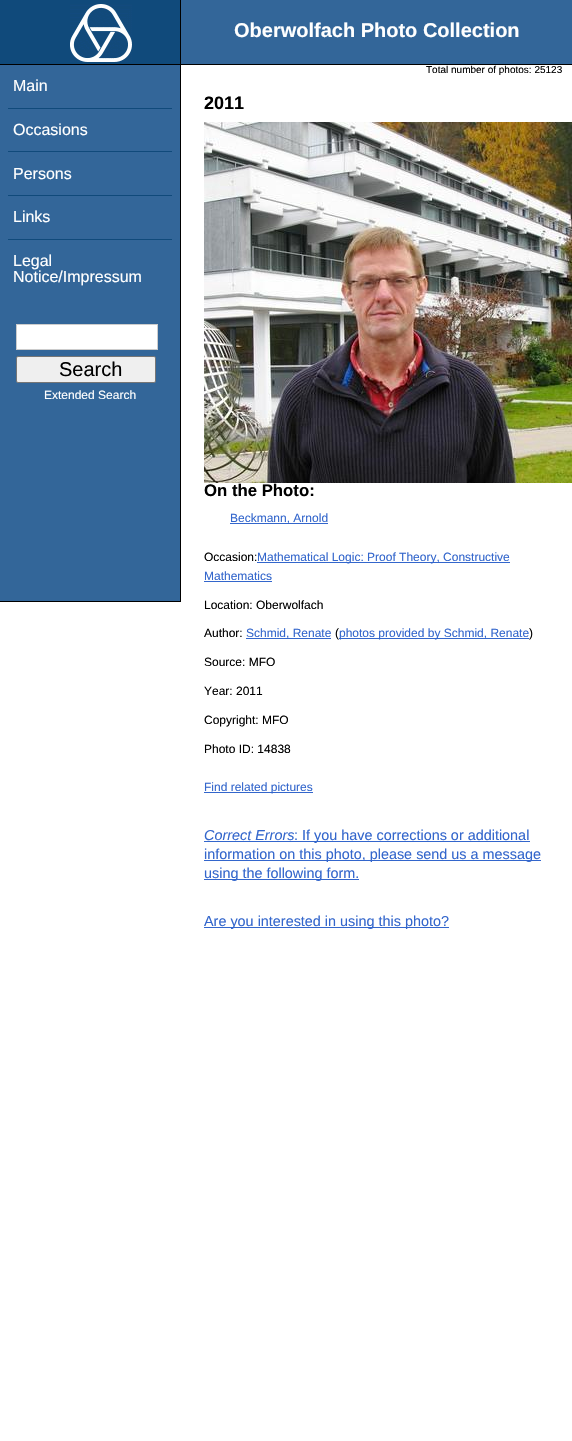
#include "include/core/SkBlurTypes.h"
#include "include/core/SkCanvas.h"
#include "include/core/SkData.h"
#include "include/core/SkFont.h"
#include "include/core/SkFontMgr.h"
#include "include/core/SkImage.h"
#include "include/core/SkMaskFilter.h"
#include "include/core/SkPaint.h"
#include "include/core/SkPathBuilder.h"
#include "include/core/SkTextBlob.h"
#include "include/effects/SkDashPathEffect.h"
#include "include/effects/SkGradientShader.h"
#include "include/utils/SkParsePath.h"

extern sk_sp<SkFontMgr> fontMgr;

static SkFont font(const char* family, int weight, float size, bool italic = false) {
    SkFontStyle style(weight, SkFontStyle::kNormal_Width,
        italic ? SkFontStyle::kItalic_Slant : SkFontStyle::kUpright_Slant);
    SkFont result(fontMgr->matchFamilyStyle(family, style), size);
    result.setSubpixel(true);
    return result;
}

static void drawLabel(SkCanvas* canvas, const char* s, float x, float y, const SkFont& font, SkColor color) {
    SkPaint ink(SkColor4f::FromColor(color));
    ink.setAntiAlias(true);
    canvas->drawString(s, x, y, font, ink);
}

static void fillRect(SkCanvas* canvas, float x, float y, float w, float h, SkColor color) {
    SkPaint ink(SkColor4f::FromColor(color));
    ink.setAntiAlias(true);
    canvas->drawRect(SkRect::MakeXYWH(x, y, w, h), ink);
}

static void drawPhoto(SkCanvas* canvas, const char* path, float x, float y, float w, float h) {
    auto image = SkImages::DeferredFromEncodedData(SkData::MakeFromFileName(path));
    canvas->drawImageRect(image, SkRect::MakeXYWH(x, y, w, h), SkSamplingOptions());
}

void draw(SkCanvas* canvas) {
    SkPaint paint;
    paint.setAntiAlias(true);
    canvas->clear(0xFFFFFFFF);
    fillRect(canvas, 181, 0, 391, 64, 0xFF336699);
    fillRect(canvas, 0, 64, 572, 1, 0xFF000000);
    fillRect(canvas, 0, 0, 180, 64, 0xFF104A7B);
    fillRect(canvas, 180, 0, 1, 64, 0xFF000000);
    drawPhoto(canvas, "assets/img1.png", 70, 4, 62, 58);
    SkFont font1 = font("Liberation Sans", 700, 20);
    drawLabel(canvas, "Oberwolfach Photo Collection", 234, 37, font1, 0xFFFFFFFF);
    SkFont font2 = font("Liberation Sans", 400, 10);
    drawLabel(canvas, "Total number of photos: 25123", 426, 73, font2, 0xFF000000);
    fillRect(canvas, 0, 65, 180, 536, 0xFF336699);
    fillRect(canvas, 180, 65, 1, 537, 0xFF000000);
    fillRect(canvas, 0, 601, 181, 1, 0xFF000000);
    SkFont font3 = font("Liberation Sans", 400, 16);
    drawLabel(canvas, "Main", 13, 91, font3, 0xFFFFFFFF);
    fillRect(canvas, 8, 108, 164, 1, 0xFF104A7B);
    drawLabel(canvas, "Occasions", 13, 135, font3, 0xFFFFFFFF);
    fillRect(canvas, 8, 151, 164, 1, 0xFF104A7B);
    drawLabel(canvas, "Persons", 13, 179, font3, 0xFFFFFFFF);
    fillRect(canvas, 8, 195, 164, 1, 0xFF104A7B);
    drawLabel(canvas, "Links", 13, 222, font3, 0xFFFFFFFF);
    fillRect(canvas, 8, 239, 164, 1, 0xFF104A7B);
    drawLabel(canvas, "Legal", 13, 266, font3, 0xFFFFFFFF);
    drawLabel(canvas, "Notice/Impressum", 13, 282, font3, 0xFFFFFFFF);
    paint.setColor(0xFFFFFFFF);
    canvas->drawRect(SkRect::MakeXYWH(16.5f, 324.5f, 141, 25), paint);
    paint.setStroke(true);
    paint.setStrokeWidth(1);
    paint.setColor(0xFFCCCCCC);
    canvas->drawRect(SkRect::MakeXYWH(16.5f, 324.5f, 141, 25), paint);
    paint.setStroke(false);
    paint.setColor(0xFFEFEFEF);
    canvas->drawRoundRect(SkRect::MakeXYWH(16.5f, 356.5f, 139, 26), 1.5f, 1.5f, paint);
    paint.setStroke(true);
    paint.setColor(0xFF767676);
    canvas->drawRoundRect(SkRect::MakeXYWH(16.5f, 356.5f, 139, 26), 1.5f, 1.5f, paint);
    SkFont font4 = font("Liberation Sans", 400, 20);
    drawLabel(canvas, "Search", 59, 376, font4, 0xFF000000);
    SkFont font5 = font("Liberation Sans", 400, 12);
    drawLabel(canvas, "Extended Search", 44, 399, font5, 0xFFFFFFFF);
    SkFont font6 = font("Liberation Sans", 700, 18);
    drawLabel(canvas, "2011", 204, 109, font6, 0xFF000000);
    drawPhoto(canvas, "assets/img2.png", 204, 122, 368, 361);
    SkFont font7 = font("Liberation Sans", 700, 16.75f);
    drawLabel(canvas, "On the Photo:", 204, 496, font7, 0xFF000000);
    fillRect(canvas, 230, 523, 98, 1, 0xFF3366CC);
    drawLabel(canvas, "Beckmann, Arnold", 230, 522, font5, 0xFF3366CC);
    drawLabel(canvas, "Occasion:", 204, 561, font5, 0xFF000000);
    fillRect(canvas, 257, 562, 253, 1, 0xFF3366CC);
    drawLabel(canvas, "Mathematical Logic: Proof Theory, Constructive", 257, 561, font5, 0xFF3366CC);
    drawLabel(canvas, "Mathematics", 204, 580, font5, 0xFF3366CC);
    fillRect(canvas, 204, 581, 68, 1, 0xFF3366CC);
    drawLabel(canvas, "Location: Oberwolfach", 204, 609, font5, 0xFF000000);
    drawLabel(canvas, "Author:", 204, 637, font5, 0xFF000000);
    fillRect(canvas, 246, 638, 85, 1, 0xFF3366CC);
    drawLabel(canvas, "Schmid, Renate", 246, 637, font5, 0xFF3366CC);
    drawLabel(canvas, "(", 335, 637, font5, 0xFF000000);
    fillRect(canvas, 339, 638, 190, 1, 0xFF3366CC);
    drawLabel(canvas, "photos provided by Schmid, Renate", 339, 637, font5, 0xFF3366CC);
    drawLabel(canvas, ")", 529, 637, font5, 0xFF000000);
    drawLabel(canvas, "Source: MFO", 204, 666, font5, 0xFF000000);
    drawLabel(canvas, "Year: 2011", 204, 695, font5, 0xFF000000);
    drawLabel(canvas, "Copyright: MFO", 204, 724, font5, 0xFF000000);
    drawLabel(canvas, "Photo ID: 14838", 204, 753, font5, 0xFF000000);
    fillRect(canvas, 204, 792, 109, 1, 0xFF3366CC);
    drawLabel(canvas, "Find related pictures", 204, 791, font5, 0xFF3366CC);
    SkFont font8 = font("Liberation Sans", 400, 14.4f, true);
    drawLabel(canvas, "Correct Errors", 204, 840, font8, 0xFF3366CC);
    fillRect(canvas, 204, 841, 326, 1, 0xFF3366CC);
    SkFont font9 = font("Liberation Sans", 400, 14.4f);
    drawLabel(canvas, ": If you have corrections or additional", 294, 840, font9, 0xFF3366CC);
    fillRect(canvas, 204, 860, 337, 1, 0xFF3366CC);
    drawLabel(canvas, "information on this photo, please send us a message", 204, 859, font9, 0xFF3366CC);
    fillRect(canvas, 204, 879, 155, 1, 0xFF3366CC);
    drawLabel(canvas, "using the following form.", 204, 878, font9, 0xFF3366CC);
    fillRect(canvas, 204, 927, 245, 1, 0xFF3366CC);
    drawLabel(canvas, "Are you interested in using this photo?", 204, 926, font9, 0xFF3366CC);
}
